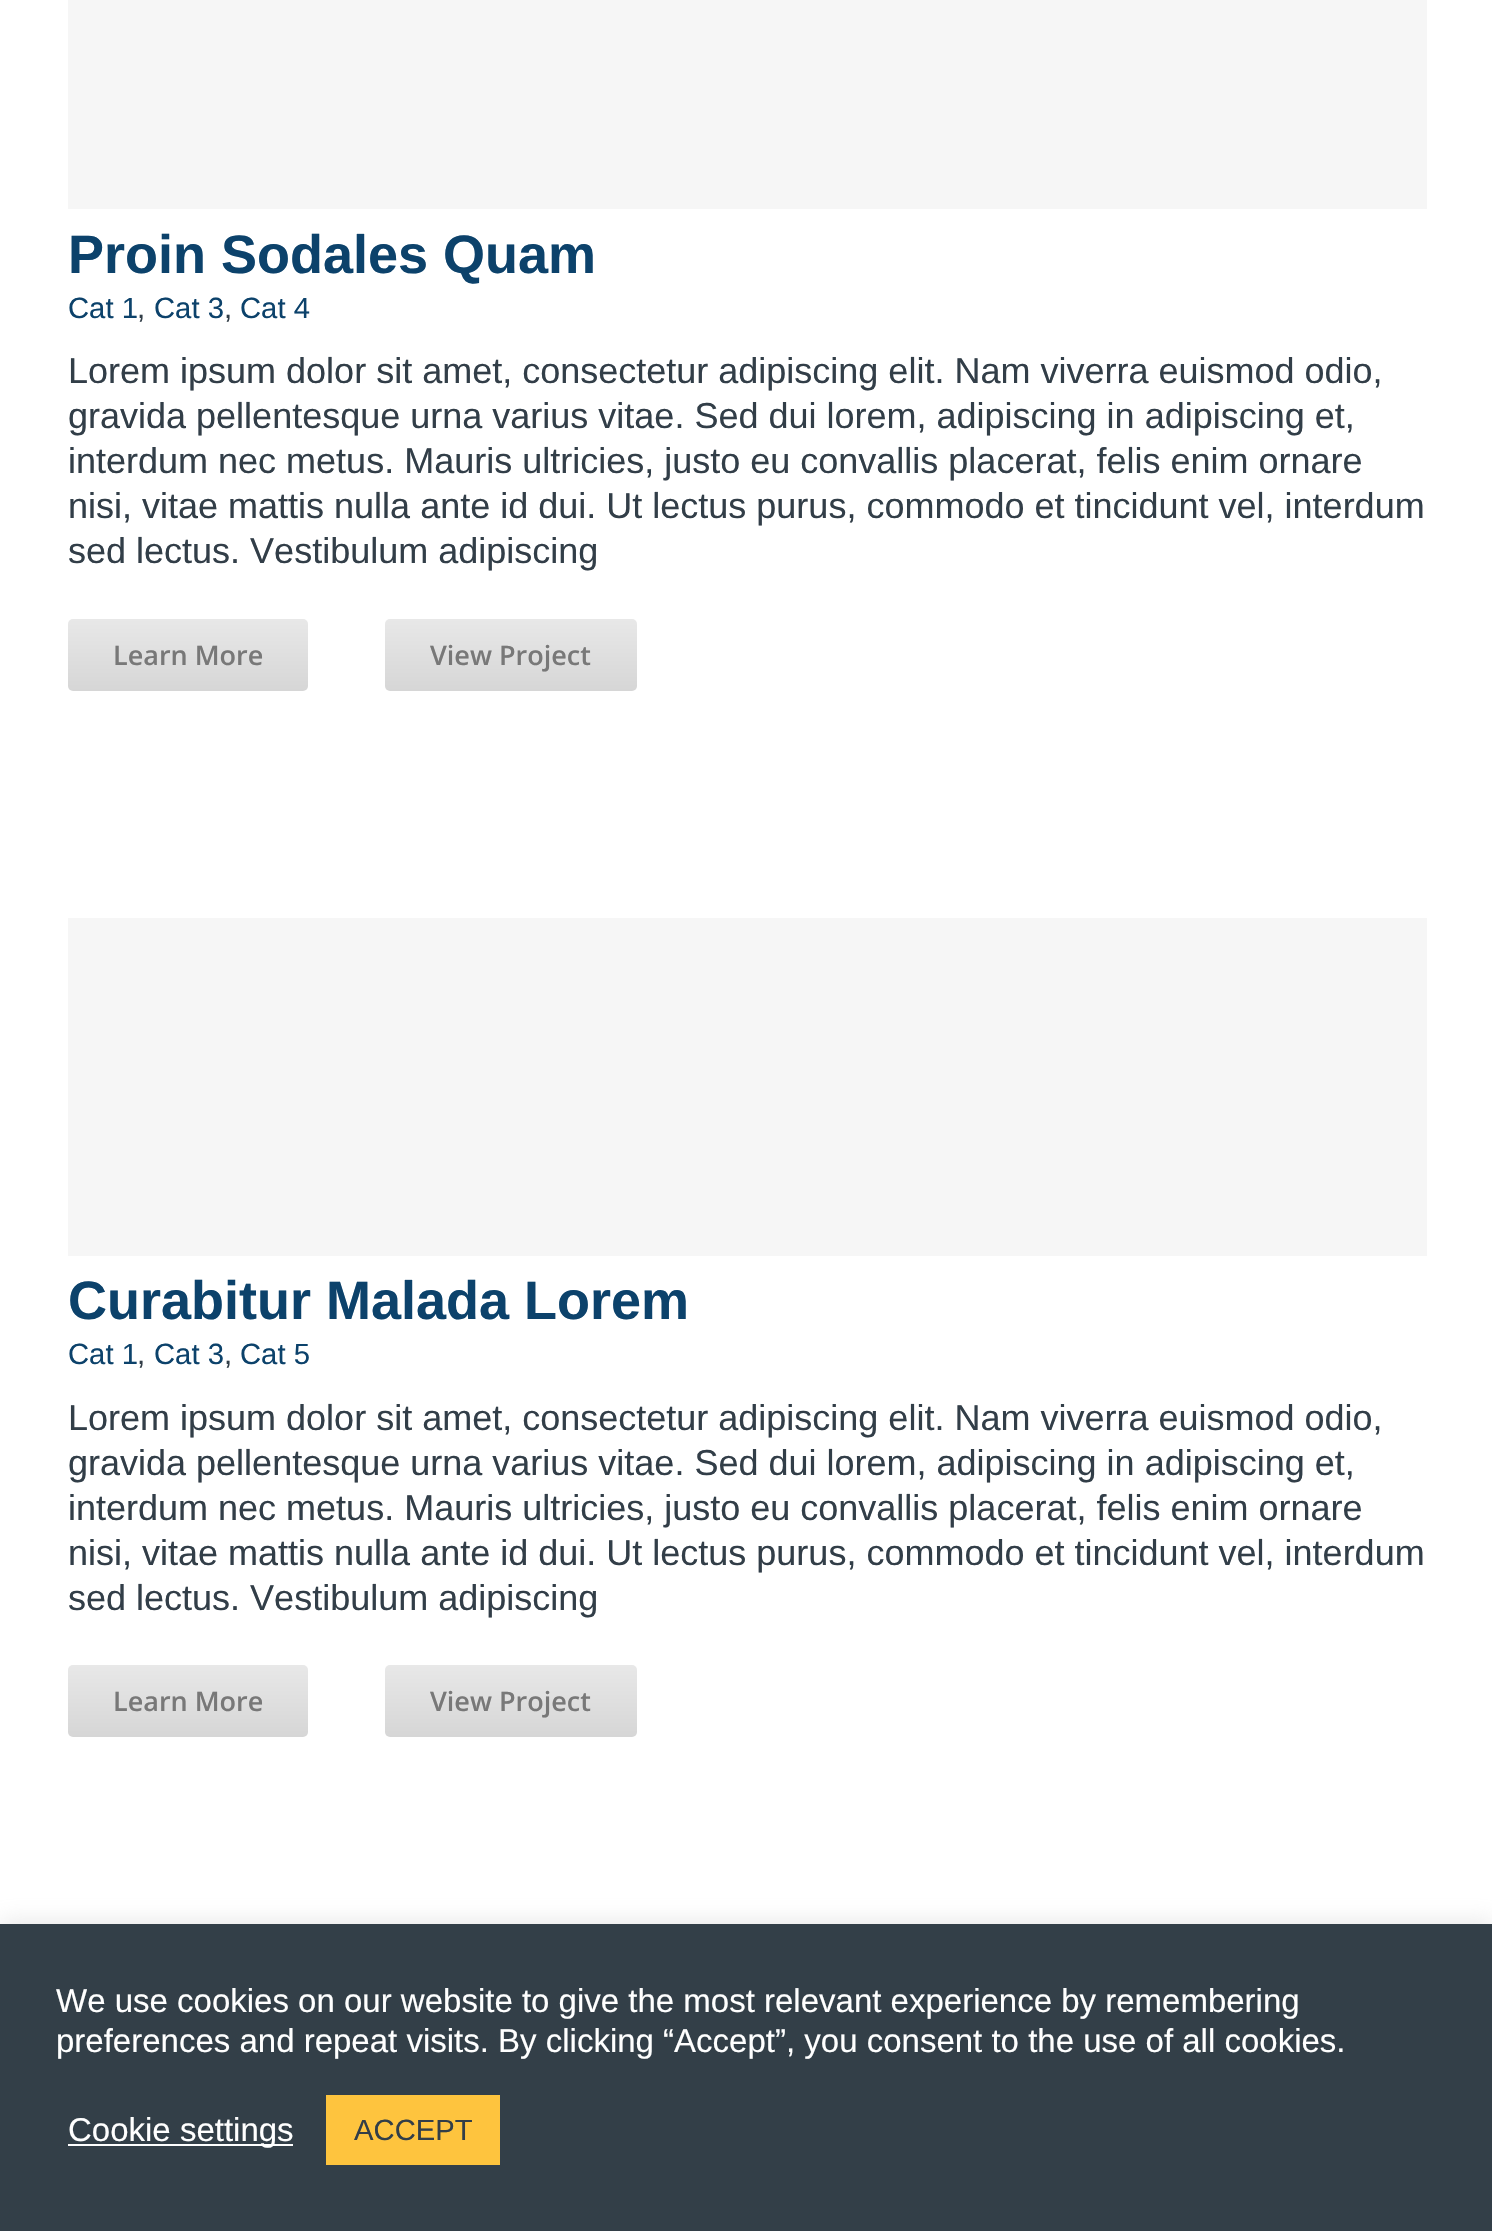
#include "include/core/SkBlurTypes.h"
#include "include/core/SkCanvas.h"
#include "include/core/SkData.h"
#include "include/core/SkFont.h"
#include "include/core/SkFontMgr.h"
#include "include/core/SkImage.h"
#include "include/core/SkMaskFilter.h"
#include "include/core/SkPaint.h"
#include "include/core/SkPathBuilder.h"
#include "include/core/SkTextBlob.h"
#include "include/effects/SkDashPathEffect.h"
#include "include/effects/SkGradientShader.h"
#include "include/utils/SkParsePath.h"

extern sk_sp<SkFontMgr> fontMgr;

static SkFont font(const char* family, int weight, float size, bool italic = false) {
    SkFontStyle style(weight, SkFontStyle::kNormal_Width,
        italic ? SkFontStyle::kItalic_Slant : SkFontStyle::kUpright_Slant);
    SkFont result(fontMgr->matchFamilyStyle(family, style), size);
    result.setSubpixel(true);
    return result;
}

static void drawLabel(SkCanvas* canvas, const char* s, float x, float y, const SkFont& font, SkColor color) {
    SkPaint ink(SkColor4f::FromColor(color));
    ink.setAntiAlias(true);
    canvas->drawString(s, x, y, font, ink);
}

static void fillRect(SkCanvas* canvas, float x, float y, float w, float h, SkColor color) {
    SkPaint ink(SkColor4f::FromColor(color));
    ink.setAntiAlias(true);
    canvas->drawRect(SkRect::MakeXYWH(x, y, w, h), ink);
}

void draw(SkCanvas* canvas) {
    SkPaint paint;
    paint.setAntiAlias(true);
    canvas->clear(0xFFFFFFFF);
    fillRect(canvas, 68, 0, 1359, 209, 0xFFF6F6F6);
    SkFont font1 = font("Liberation Sans", 700, 54);
    drawLabel(canvas, "Proin Sodales Quam", 68, 273, font1, 0xFF0C426B);
    SkFont font2 = font("Liberation Sans", 400, 29.25f);
    drawLabel(canvas, "Cat 1", 68, 318, font2, 0xFF0C426B);
    drawLabel(canvas, ",", 137, 318, font2, 0xFF323E48);
    drawLabel(canvas, "Cat 3", 154, 318, font2, 0xFF0C426B);
    drawLabel(canvas, ",", 224, 318, font2, 0xFF323E48);
    drawLabel(canvas, "Cat 4", 240, 318, font2, 0xFF0C426B);
    SkFont font3 = font("Liberation Sans", 400, 36);
    drawLabel(canvas, "Lorem ipsum dolor sit amet, consectetur adipiscing elit. Nam viverra euismod odio,", 68, 383, font3, 0xFF323E48);
    drawLabel(canvas, "gravida pellentesque urna varius vitae. Sed dui lorem, adipiscing in adipiscing et,", 68, 428, font3, 0xFF323E48);
    drawLabel(canvas, "interdum nec metus. Mauris ultricies, justo eu convallis placerat, felis enim ornare", 68, 473, font3, 0xFF323E48);
    drawLabel(canvas, "nisi, vitae mattis nulla ante id dui. Ut lectus purus, commodo et tincidunt vel, interdum", 68, 518, font3, 0xFF323E48);
    drawLabel(canvas, "sed lectus. Vestibulum adipiscing", 68, 563, font3, 0xFF323E48);
    {
        const SkColor colors[] = {0xFFE8E8E8, 0xFFD6D6D6};
        const float stops[] = {0, 1};
        const SkPoint ends[] = {{188, 619}, {188, 691}};
        paint.setShader(SkGradientShader::MakeLinear(ends, colors, stops, 2, SkTileMode::kClamp));
        paint.setAlpha(255);
    }
    canvas->drawRoundRect(SkRect::MakeXYWH(68, 619, 240, 72), 5, 5, paint);
    SkFont font4 = font("Open Sans", 600, 27);
    drawLabel(canvas, "Learn More", 113, 665, font4, 0xFF787878);
    {
        const SkColor colors[] = {0xFFE8E8E8, 0xFFD6D6D6};
        const float stops[] = {0, 1};
        const SkPoint ends[] = {{511, 619}, {511, 691}};
        paint.setShader(SkGradientShader::MakeLinear(ends, colors, stops, 2, SkTileMode::kClamp));
        paint.setAlpha(255);
    }
    canvas->drawRoundRect(SkRect::MakeXYWH(385, 619, 252, 72), 5, 5, paint);
    drawLabel(canvas, "View Project", 430, 665, font4, 0xFF787878);
    fillRect(canvas, 68, 918, 1359, 338, 0xFFF6F6F6);
    drawLabel(canvas, "Curabitur Malada Lorem", 68, 1319, font1, 0xFF0C426B);
    drawLabel(canvas, "Cat 1", 68, 1364, font2, 0xFF0C426B);
    drawLabel(canvas, ",", 137, 1364, font2, 0xFF323E48);
    drawLabel(canvas, "Cat 3", 154, 1364, font2, 0xFF0C426B);
    drawLabel(canvas, ",", 224, 1364, font2, 0xFF323E48);
    drawLabel(canvas, "Cat 5", 240, 1364, font2, 0xFF0C426B);
    drawLabel(canvas, "Lorem ipsum dolor sit amet, consectetur adipiscing elit. Nam viverra euismod odio,", 68, 1430, font3, 0xFF323E48);
    drawLabel(canvas, "gravida pellentesque urna varius vitae. Sed dui lorem, adipiscing in adipiscing et,", 68, 1475, font3, 0xFF323E48);
    drawLabel(canvas, "interdum nec metus. Mauris ultricies, justo eu convallis placerat, felis enim ornare", 68, 1520, font3, 0xFF323E48);
    drawLabel(canvas, "nisi, vitae mattis nulla ante id dui. Ut lectus purus, commodo et tincidunt vel, interdum", 68, 1565, font3, 0xFF323E48);
    drawLabel(canvas, "sed lectus. Vestibulum adipiscing", 68, 1610, font3, 0xFF323E48);
    {
        const SkColor colors[] = {0xFFE8E8E8, 0xFFD6D6D6};
        const float stops[] = {0, 1};
        const SkPoint ends[] = {{188, 1665}, {188, 1737}};
        paint.setShader(SkGradientShader::MakeLinear(ends, colors, stops, 2, SkTileMode::kClamp));
        paint.setAlpha(255);
    }
    canvas->drawRoundRect(SkRect::MakeXYWH(68, 1665, 240, 72), 5, 5, paint);
    drawLabel(canvas, "Learn More", 113, 1711, font4, 0xFF787878);
    {
        const SkColor colors[] = {0xFFE8E8E8, 0xFFD6D6D6};
        const float stops[] = {0, 1};
        const SkPoint ends[] = {{511, 1665}, {511, 1737}};
        paint.setShader(SkGradientShader::MakeLinear(ends, colors, stops, 2, SkTileMode::kClamp));
        paint.setAlpha(255);
    }
    canvas->drawRoundRect(SkRect::MakeXYWH(385, 1665, 252, 72), 5, 5, paint);
    drawLabel(canvas, "View Project", 430, 1711, font4, 0xFF787878);
    paint.setShader(nullptr);
    paint.setColor(0x4DACABAB);
    paint.setMaskFilter(SkMaskFilter::MakeBlur(kNormal_SkBlurStyle, 11));
    canvas->drawRect(SkRect::MakeXYWH(0, 1922, 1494, 308), paint);
    paint.setMaskFilter(nullptr);
    fillRect(canvas, 0, 1924, 1492, 307, 0xFF333F48);
    SkFont font5 = font("Liberation Sans", 400, 33);
    drawLabel(canvas, "We use cookies on our website to give the most relevant experience by remembering", 56, 2012, font5, 0xFFFFFFFF);
    drawLabel(canvas, "preferences and repeat visits. By clicking “Accept”, you consent to the use of all cookies.", 56, 2052, font5, 0xFFFFFFFF);
    fillRect(canvas, 68, 2144, 225, 2, 0xFFFFFFFF);
    drawLabel(canvas, "Cookie settings", 68, 2141, font5, 0xFFFFFFFF);
    fillRect(canvas, 326, 2095, 174, 70, 0xFFFEC43E);
    drawLabel(canvas, "ACCEPT", 354, 2140, font2, 0xFF323E48);
}
